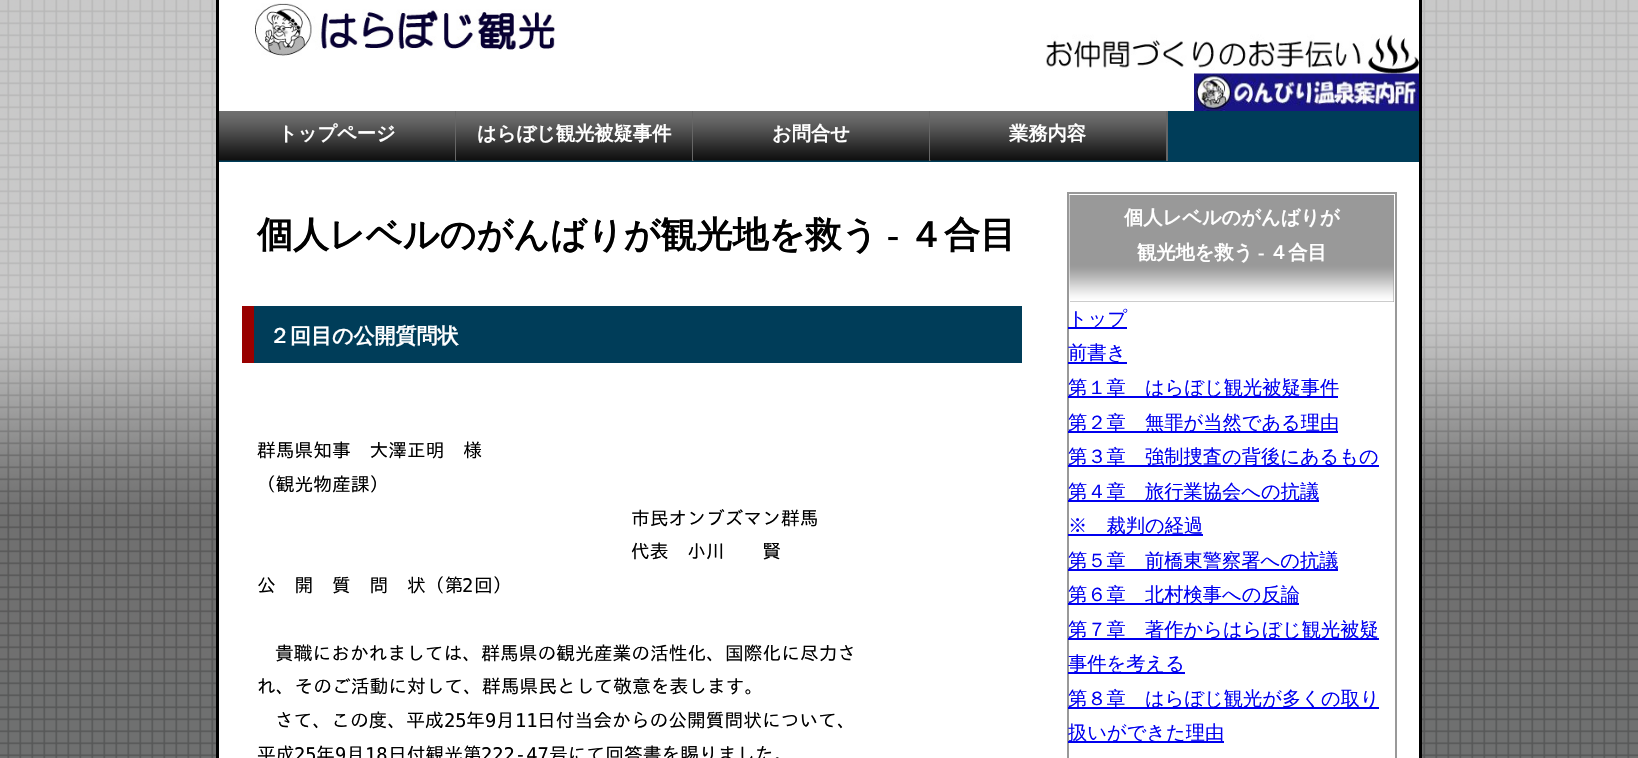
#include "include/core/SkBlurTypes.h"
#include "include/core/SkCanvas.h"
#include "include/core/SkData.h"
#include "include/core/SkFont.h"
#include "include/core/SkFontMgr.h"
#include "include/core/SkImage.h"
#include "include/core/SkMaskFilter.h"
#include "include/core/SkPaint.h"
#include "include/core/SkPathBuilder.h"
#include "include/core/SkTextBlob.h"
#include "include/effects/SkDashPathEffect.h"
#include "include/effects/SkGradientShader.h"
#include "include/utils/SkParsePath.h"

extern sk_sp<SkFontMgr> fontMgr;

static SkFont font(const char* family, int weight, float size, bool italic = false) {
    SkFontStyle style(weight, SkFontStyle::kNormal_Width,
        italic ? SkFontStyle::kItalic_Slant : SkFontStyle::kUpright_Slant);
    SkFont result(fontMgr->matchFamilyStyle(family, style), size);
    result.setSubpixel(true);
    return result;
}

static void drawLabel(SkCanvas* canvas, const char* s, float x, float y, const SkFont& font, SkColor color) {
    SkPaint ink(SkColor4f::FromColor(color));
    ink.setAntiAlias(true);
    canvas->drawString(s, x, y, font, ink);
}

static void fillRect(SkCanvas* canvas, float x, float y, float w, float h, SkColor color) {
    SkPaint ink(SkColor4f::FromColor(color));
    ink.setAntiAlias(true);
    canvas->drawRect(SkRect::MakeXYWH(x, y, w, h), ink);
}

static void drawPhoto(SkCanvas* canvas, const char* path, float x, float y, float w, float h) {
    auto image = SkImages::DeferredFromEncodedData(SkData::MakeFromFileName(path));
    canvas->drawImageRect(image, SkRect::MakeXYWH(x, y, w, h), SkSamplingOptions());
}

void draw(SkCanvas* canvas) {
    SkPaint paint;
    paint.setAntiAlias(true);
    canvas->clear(0xFFFFFFFF);
    drawPhoto(canvas, "assets/img1.png", 0, 0, 1638, 758);
    fillRect(canvas, 219, 0, 1200, 758, 0xFFFFFFFF);
    fillRect(canvas, 1419, 0, 3, 758, 0xFF000000);
    fillRect(canvas, 216, 0, 3, 758, 0xFF000000);
    drawPhoto(canvas, "assets/img2.png", 255, 3, 300, 53);
    drawPhoto(canvas, "assets/img3.png", 1046, 34, 373, 40);
    drawPhoto(canvas, "assets/img4.png", 1194, 73, 225, 38);
    fillRect(canvas, 219, 111, 1200, 51, 0xFF003D59);
    drawPhoto(canvas, "assets/img5.png", 219, 111, 236, 50);
    fillRect(canvas, 455, 111, 2, 50, 0xFF666666);
    SkFont font1 = font("WenQuanYi Zen Hei", 700, 19.25f);
    drawLabel(canvas, "トップページ", 278, 140, font1, 0xFFFFFFFF);
    drawPhoto(canvas, "assets/img6.png", 456, 111, 236, 50);
    fillRect(canvas, 692, 111, 2, 50, 0xFF666666);
    drawLabel(canvas, "はらぼじ観光被疑事件", 477, 140, font1, 0xFFFFFFFF);
    drawPhoto(canvas, "assets/img6.png", 693, 111, 236, 50);
    fillRect(canvas, 929, 111, 2, 50, 0xFF666666);
    drawLabel(canvas, "お問合せ", 772, 140, font1, 0xFFFFFFFF);
    drawPhoto(canvas, "assets/img6.png", 930, 111, 236, 50);
    fillRect(canvas, 1166, 111, 2, 50, 0xFF666666);
    drawLabel(canvas, "業務内容", 1009, 140, font1, 0xFFFFFFFF);
    SkFont font2 = font("WenQuanYi Zen Hei", 700, 36);
    drawLabel(canvas, "個人レベルのがんばりが観光地を救う", 257, 247, font2, 0xFF000000);
    SkFont font3 = font("Liberation Serif", 700, 36);
    drawLabel(canvas, "-", 887, 247, font3, 0xFF000000);
    drawLabel(canvas, "４合目", 908, 247, font2, 0xFF000000);
    fillRect(canvas, 254, 306, 768, 57, 0xFF003D59);
    fillRect(canvas, 242, 306, 12, 57, 0xFF990000);
    SkFont font4 = font("WenQuanYi Zen Hei", 700, 21);
    drawLabel(canvas, "２回目の公開質問状", 269, 343, font4, 0xFFFFFFFF);
    SkFont font5 = font("IPAGothic", 400, 18.75f);
    drawLabel(canvas, "群馬県知事　大澤正明　様", 257, 457, font5, 0xFF000000);
    drawLabel(canvas, "（観光物産課）", 257, 491, font5, 0xFF000000);
    drawLabel(canvas, "市民オンブズマン群馬", 631, 525, font5, 0xFF000000);
    drawLabel(canvas, "代表　小川　　賢", 631, 558, font5, 0xFF000000);
    drawLabel(canvas, "公　開　質　問　状（第", 257, 592, font5, 0xFF000000);
    SkFont font6 = font("DejaVu Sans Mono", 400, 18.75f);
    drawLabel(canvas, "2", 462, 592, font6, 0xFF000000);
    drawLabel(canvas, "回）", 474, 592, font5, 0xFF000000);
    drawLabel(canvas, "貴職におかれましては、群馬県の観光産業の活性化、国際化に尽力さ", 275, 660, font5, 0xFF000000);
    drawLabel(canvas, "れ、そのご活動に対して、群馬県民として敬意を表します。", 257, 693, font5, 0xFF000000);
    drawLabel(canvas, "さて、この度、平成", 275, 727, font5, 0xFF000000);
    drawLabel(canvas, "25", 444, 727, font6, 0xFF000000);
    drawLabel(canvas, "年", 466, 727, font5, 0xFF000000);
    drawLabel(canvas, "9", 485, 727, font6, 0xFF000000);
    drawLabel(canvas, "月", 496, 727, font5, 0xFF000000);
    drawLabel(canvas, "11", 515, 727, font6, 0xFF000000);
    drawLabel(canvas, "日付当会からの公開質問状について、", 537, 727, font5, 0xFF000000);
    drawLabel(canvas, "平成", 257, 761, font5, 0xFF000000);
    drawLabel(canvas, "25", 294, 761, font6, 0xFF000000);
    drawLabel(canvas, "年", 316, 761, font5, 0xFF000000);
    drawLabel(canvas, "9", 335, 761, font6, 0xFF000000);
    drawLabel(canvas, "月", 346, 761, font5, 0xFF000000);
    drawLabel(canvas, "18", 365, 761, font6, 0xFF000000);
    drawLabel(canvas, "日付観光第", 388, 761, font5, 0xFF000000);
    drawLabel(canvas, "222-47", 481, 761, font6, 0xFF000000);
    drawLabel(canvas, "号にて回答書を賜りました。", 549, 761, font5, 0xFF000000);
    paint.setStroke(true);
    paint.setStrokeWidth(2);
    paint.setColor(0xFF999999);
    canvas->drawRect(SkRect::MakeXYWH(1068, 193, 328, 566), paint);
    fillRect(canvas, 1070, 195, 324, 107, 0xFF999999);
    drawPhoto(canvas, "assets/img7.png", 1069, 195, 325, 107);
    drawLabel(canvas, "個人レベルのがんばりが", 1124, 224, font1, 0xFFFFFFFF);
    drawLabel(canvas, "観光地を救う", 1137, 259, font1, 0xFFFFFFFF);
    SkFont font7 = font("Liberation Serif", 700, 19.25f);
    drawLabel(canvas, "-", 1258, 259, font7, 0xFFFFFFFF);
    drawLabel(canvas, "４合目", 1269, 259, font1, 0xFFFFFFFF);
    fillRect(canvas, 1068, 327, 59, 2, 0xFF0000EE);
    SkFont font8 = font("WenQuanYi Zen Hei", 500, 19.25f);
    drawLabel(canvas, "トップ", 1068, 325, font8, 0xFF0000EE);
    fillRect(canvas, 1068, 362, 59, 2, 0xFF0000EE);
    drawLabel(canvas, "前書き", 1068, 359, font8, 0xFF0000EE);
    fillRect(canvas, 1068, 396, 270, 2, 0xFF0000EE);
    drawLabel(canvas, "第１章　はらぼじ観光被疑事件", 1068, 394, font8, 0xFF0000EE);
    fillRect(canvas, 1068, 431, 270, 2, 0xFF0000EE);
    drawLabel(canvas, "第２章　無罪が当然である理由", 1068, 429, font8, 0xFF0000EE);
    fillRect(canvas, 1068, 465, 311, 2, 0xFF0000EE);
    drawLabel(canvas, "第３章　強制捜査の背後にあるもの", 1068, 463, font8, 0xFF0000EE);
    fillRect(canvas, 1068, 500, 251, 2, 0xFF0000EE);
    drawLabel(canvas, "第４章　旅行業協会への抗議", 1068, 498, font8, 0xFF0000EE);
    fillRect(canvas, 1068, 534, 135, 2, 0xFF0000EE);
    drawLabel(canvas, "※　裁判の経過", 1068, 532, font8, 0xFF0000EE);
    fillRect(canvas, 1068, 569, 270, 2, 0xFF0000EE);
    drawLabel(canvas, "第５章　前橋東警察署への抗議", 1068, 567, font8, 0xFF0000EE);
    fillRect(canvas, 1068, 603, 231, 2, 0xFF0000EE);
    drawLabel(canvas, "第６章　北村検事への反論", 1068, 601, font8, 0xFF0000EE);
    fillRect(canvas, 1068, 638, 311, 2, 0xFF0000EE);
    drawLabel(canvas, "第７章　著作からはらぼじ観光被疑", 1068, 636, font8, 0xFF0000EE);
    fillRect(canvas, 1068, 672, 117, 2, 0xFF0000EE);
    drawLabel(canvas, "事件を考える", 1068, 670, font8, 0xFF0000EE);
    fillRect(canvas, 1068, 707, 311, 2, 0xFF0000EE);
    drawLabel(canvas, "第８章　はらぼじ観光が多くの取り", 1068, 705, font8, 0xFF0000EE);
    fillRect(canvas, 1068, 741, 156, 2, 0xFF0000EE);
    drawLabel(canvas, "扱いができた理由", 1068, 739, font8, 0xFF0000EE);
}
